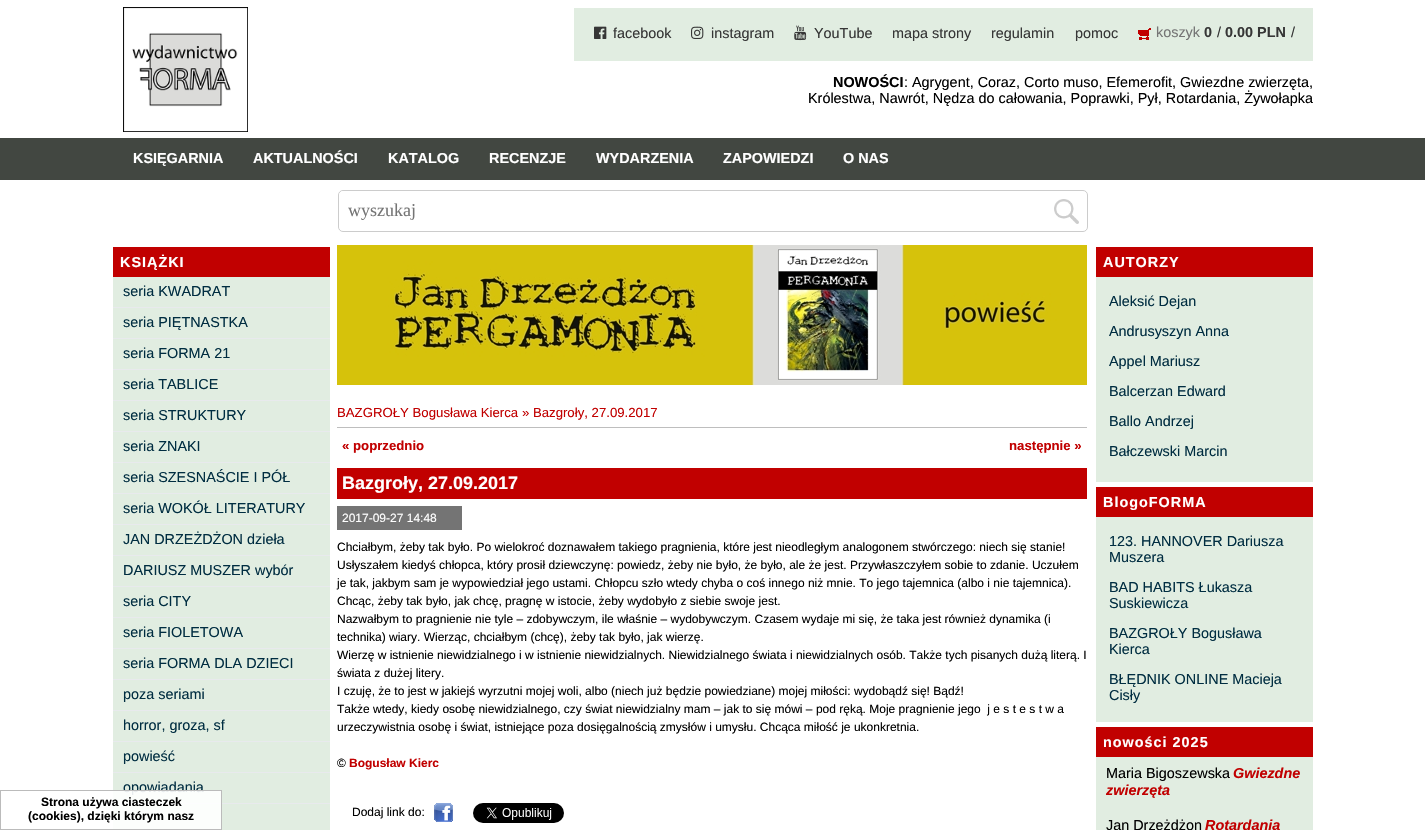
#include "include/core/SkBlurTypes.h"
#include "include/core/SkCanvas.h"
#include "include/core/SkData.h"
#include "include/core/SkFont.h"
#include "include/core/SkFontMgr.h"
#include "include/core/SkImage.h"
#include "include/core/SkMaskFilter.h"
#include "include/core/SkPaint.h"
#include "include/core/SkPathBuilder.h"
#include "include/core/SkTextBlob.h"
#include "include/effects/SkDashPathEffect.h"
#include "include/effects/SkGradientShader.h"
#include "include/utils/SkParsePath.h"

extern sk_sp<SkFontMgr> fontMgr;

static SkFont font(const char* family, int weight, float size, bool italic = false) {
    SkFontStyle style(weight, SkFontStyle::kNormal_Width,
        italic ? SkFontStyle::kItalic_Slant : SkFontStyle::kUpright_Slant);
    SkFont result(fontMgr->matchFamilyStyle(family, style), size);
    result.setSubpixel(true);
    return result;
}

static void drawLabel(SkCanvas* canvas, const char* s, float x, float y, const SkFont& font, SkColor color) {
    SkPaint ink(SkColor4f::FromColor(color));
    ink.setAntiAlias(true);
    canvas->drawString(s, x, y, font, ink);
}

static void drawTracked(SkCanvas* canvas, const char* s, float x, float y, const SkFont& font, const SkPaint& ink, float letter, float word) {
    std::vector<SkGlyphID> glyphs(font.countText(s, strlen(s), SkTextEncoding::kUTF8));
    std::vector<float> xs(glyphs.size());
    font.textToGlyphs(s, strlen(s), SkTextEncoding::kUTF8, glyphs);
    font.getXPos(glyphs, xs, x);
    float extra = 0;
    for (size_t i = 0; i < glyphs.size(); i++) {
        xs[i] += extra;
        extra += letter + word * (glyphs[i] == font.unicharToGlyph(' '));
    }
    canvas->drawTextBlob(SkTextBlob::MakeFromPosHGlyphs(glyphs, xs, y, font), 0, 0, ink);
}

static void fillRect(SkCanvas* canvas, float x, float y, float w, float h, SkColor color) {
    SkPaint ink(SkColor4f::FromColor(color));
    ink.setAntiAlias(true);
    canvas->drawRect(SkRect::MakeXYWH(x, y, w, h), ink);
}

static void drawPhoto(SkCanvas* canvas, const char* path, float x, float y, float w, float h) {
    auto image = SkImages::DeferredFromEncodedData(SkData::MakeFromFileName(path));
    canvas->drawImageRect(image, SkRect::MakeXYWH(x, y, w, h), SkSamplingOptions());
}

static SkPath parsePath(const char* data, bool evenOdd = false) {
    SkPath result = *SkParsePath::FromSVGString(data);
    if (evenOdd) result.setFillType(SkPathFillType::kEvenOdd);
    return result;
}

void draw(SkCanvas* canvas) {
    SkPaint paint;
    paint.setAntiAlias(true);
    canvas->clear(0xFFFFFFFF);
    drawPhoto(canvas, "assets/img1.png", 123, 7, 125, 125);
    fillRect(canvas, 574, 8, 739, 53, 0xFFE1EDE1);
    drawPhoto(canvas, "assets/img2.png", 594, 26, 13, 13);
    SkFont font1 = font("Liberation Sans", 400, 14.4f);
    drawLabel(canvas, "facebook", 613, 38, font1, 0xFF363636);
    drawPhoto(canvas, "assets/img3.png", 691, 26, 13, 13);
    drawLabel(canvas, "instagram", 711, 38, font1, 0xFF363636);
    drawPhoto(canvas, "assets/img4.png", 794, 25, 13, 16);
    drawLabel(canvas, "YouTube", 814, 38, font1, 0xFF363636);
    drawLabel(canvas, "mapa strony", 892, 38, font1, 0xFF363636);
    drawLabel(canvas, "regulamin", 991, 38, font1, 0xFF363636);
    drawLabel(canvas, "pomoc", 1075, 38, font1, 0xFF363636);
    drawPhoto(canvas, "assets/img5.png", 1138, 28, 13, 12);
    drawLabel(canvas, "koszyk", 1156, 37, font1, 0xFF757575);
    SkFont font2 = font("Liberation Sans", 700, 14.4f);
    drawLabel(canvas, "0", 1204, 37, font2, 0xFF363636);
    drawLabel(canvas, "/", 1217, 37, font1, 0xFF363636);
    drawLabel(canvas, "0.00 PLN", 1225, 37, font2, 0xFF363636);
    drawLabel(canvas, "/", 1291, 37, font1, 0xFF363636);
    drawLabel(canvas, "NOWOŚCI", 833, 87, font2, 0xFF000000);
    drawLabel(canvas, ": Agrygent, Coraz, Corto muso, Efemerofit, Gwiezdne zwierzęta,", 904, 87, font1, 0xFF000000);
    drawLabel(canvas, "Królestwa, Nawrót, Nędza do całowania, Poprawki, Pył, Rotardania, Żywołapka", 808, 103, font1, 0xFF000000);
    fillRect(canvas, 0, 138, 1425, 42, 0xFF424741);
    drawLabel(canvas, "KSIĘGARNIA", 133, 163, font2, 0xFFFFFFFF);
    drawLabel(canvas, "AKTUALNOŚCI", 253, 163, font2, 0xFFFFFFFF);
    drawLabel(canvas, "KATALOG", 388, 163, font2, 0xFFFFFFFF);
    drawLabel(canvas, "RECENZJE", 489, 163, font2, 0xFFFFFFFF);
    drawLabel(canvas, "WYDARZENIA", 596, 163, font2, 0xFFFFFFFF);
    drawLabel(canvas, "ZAPOWIEDZI", 723, 163, font2, 0xFFFFFFFF);
    drawLabel(canvas, "O NAS", 843, 163, font2, 0xFFFFFFFF);
    paint.setStroke(true);
    paint.setStrokeWidth(1);
    paint.setColor(0xFFCCCCCC);
    canvas->drawRoundRect(SkRect::MakeXYWH(338.5f, 190.5f, 749, 41), 4.5f, 4.5f, paint);
    paint.setStroke(false);
    paint.setColor(0xFFFFFFFF);
    canvas->drawPath(parsePath("M344 191H1047V230H344C341 230 339 228 339 225V196C339 193 341 191 344 191Z"), paint);
    SkFont font3 = font("Liberation Serif", 400, 18);
    drawLabel(canvas, "wyszukaj", 348, 216, font3, 0xFF757575);
    drawPhoto(canvas, "assets/img6.png", 1054, 199, 25, 25);
    fillRect(canvas, 113, 277, 217, 553, 0xFFE1EDE1);
    fillRect(canvas, 113, 803, 217, 1, 0xFFE8EAED);
    drawLabel(canvas, "opowiadania", 123, 792, font1, 0xFF002D41);
    fillRect(canvas, 113, 791, 108, 38, 0xE6FFFFFF);
    paint.setStroke(true);
    paint.setColor(0xFFBBBBBB);
    canvas->drawRect(SkRect::MakeXYWH(0.5f, 790.5f, 221, 39), paint);
    SkFont font4 = font("Liberation Sans", 700, 12);
    drawLabel(canvas, "Strona używa ciasteczek", 41, 806, font4, 0xFF000000);
    drawLabel(canvas, "(cookies), dzięki którym nasz", 28, 820, font4, 0xFF000000);
    fillRect(canvas, 113, 247, 217, 30, 0xFFC10000);
    paint.setStroke(false);
    paint.setColor(0xFFFFFFFF);
    drawTracked(canvas, "KSIĄŻKI", 120, 267, font2, paint, 1, 0);
    fillRect(canvas, 113, 307, 217, 1, 0xFFE8EAED);
    drawLabel(canvas, "seria KWADRAT", 123, 296, font1, 0xFF002D41);
    fillRect(canvas, 113, 338, 217, 1, 0xFFE8EAED);
    drawLabel(canvas, "seria PIĘTNASTKA", 123, 327, font1, 0xFF002D41);
    fillRect(canvas, 113, 369, 217, 1, 0xFFE8EAED);
    drawLabel(canvas, "seria FORMA 21", 123, 358, font1, 0xFF002D41);
    fillRect(canvas, 113, 400, 217, 1, 0xFFE8EAED);
    drawLabel(canvas, "seria TABLICE", 123, 389, font1, 0xFF002D41);
    fillRect(canvas, 113, 431, 217, 1, 0xFFE8EAED);
    drawLabel(canvas, "seria STRUKTURY", 123, 420, font1, 0xFF002D41);
    fillRect(canvas, 113, 462, 217, 1, 0xFFE8EAED);
    drawLabel(canvas, "seria ZNAKI", 123, 451, font1, 0xFF002D41);
    fillRect(canvas, 113, 493, 217, 1, 0xFFE8EAED);
    drawLabel(canvas, "seria SZESNAŚCIE I PÓŁ", 123, 482, font1, 0xFF002D41);
    fillRect(canvas, 113, 524, 217, 1, 0xFFE8EAED);
    drawLabel(canvas, "seria WOKÓŁ LITERATURY", 123, 513, font1, 0xFF002D41);
    fillRect(canvas, 113, 555, 217, 1, 0xFFE8EAED);
    drawLabel(canvas, "JAN DRZEŻDŻON dzieła", 123, 544, font1, 0xFF002D41);
    fillRect(canvas, 113, 586, 217, 1, 0xFFE8EAED);
    drawLabel(canvas, "DARIUSZ MUSZER wybór", 123, 575, font1, 0xFF002D41);
    fillRect(canvas, 113, 617, 217, 1, 0xFFE8EAED);
    drawLabel(canvas, "seria CITY", 123, 606, font1, 0xFF002D41);
    fillRect(canvas, 113, 648, 217, 1, 0xFFE8EAED);
    drawLabel(canvas, "seria FIOLETOWA", 123, 637, font1, 0xFF002D41);
    fillRect(canvas, 113, 679, 217, 1, 0xFFE8EAED);
    drawLabel(canvas, "seria FORMA DLA DZIECI", 123, 668, font1, 0xFF002D41);
    fillRect(canvas, 113, 710, 217, 1, 0xFFE8EAED);
    drawLabel(canvas, "poza seriami", 123, 699, font1, 0xFF002D41);
    fillRect(canvas, 113, 741, 217, 1, 0xFFE8EAED);
    drawLabel(canvas, "horror, groza, sf", 123, 730, font1, 0xFF002D41);
    fillRect(canvas, 113, 772, 217, 1, 0xFFE8EAED);
    drawLabel(canvas, "powieść", 123, 761, font1, 0xFF002D41);
    drawPhoto(canvas, "assets/img7.png", 337, 245, 750, 140);
    fillRect(canvas, 337, 427, 750, 1, 0xFFBEBEBE);
    SkFont font5 = font("Liberation Sans", 400, 13.2f);
    drawLabel(canvas, "BAZGROŁY Bogusława Kierca » Bazgroły, 27.09.2017", 337, 417, font5, 0xFFC10000);
    SkFont font6 = font("Liberation Sans", 700, 13.2f);
    drawLabel(canvas, "« poprzednio", 342, 450, font6, 0xFFC10000);
    drawLabel(canvas, "następnie »", 1009, 450, font6, 0xFFC10000);
    fillRect(canvas, 337, 468, 750, 31, 0xFFC10000);
    SkFont font7 = font("Liberation Sans", 700, 18);
    drawLabel(canvas, "Bazgroły, 27.09.2017", 342, 489, font7, 0xFFFFFFFF);
    fillRect(canvas, 337, 506, 125, 24, 0xFF747474);
    SkFont font8 = font("Liberation Sans", 400, 12);
    drawLabel(canvas, "2017-09-27 14:48", 342, 522, font8, 0xFFFFFFFF);
    drawLabel(canvas, "Chciałbym, żeby tak było. Po wielokroć doznawałem takiego pragnienia, które jest nieodległym analogonem stwórczego: niech się stanie!", 337, 551, font8, 0xFF000000);
    drawLabel(canvas, "Usłyszałem kiedyś chłopca, który prosił dziewczynę: powiedz, żeby nie było, że było, ale że jest. Przywłaszczyłem sobie to zdanie. Uczułem", 337, 569, font8, 0xFF000000);
    drawLabel(canvas, "je tak, jakbym sam je wypowiedział jego ustami. Chłopcu szło wtedy chyba o coś innego niż mnie. To jego tajemnica (albo i nie tajemnica).", 337, 587, font8, 0xFF000000);
    drawLabel(canvas, "Chcąc, żeby tak było, jak chcę, pragnę w istocie, żeby wydobyło z siebie swoje jest.", 337, 605, font8, 0xFF000000);
    drawLabel(canvas, "Nazwałbym to pragnienie nie tyle – zdobywczym, ile właśnie – wydobywczym. Czasem wydaje mi się, że taka jest również dynamika (i", 337, 623, font8, 0xFF000000);
    drawLabel(canvas, "technika) wiary. Wierząc, chciałbym (chcę), żeby tak było, jak wierzę.", 337, 641, font8, 0xFF000000);
    drawLabel(canvas, "Wierzę w istnienie niewidzialnego i w istnienie niewidzialnych. Niewidzialnego świata i niewidzialnych osób. Także tych pisanych dużą literą. I", 337, 659, font8, 0xFF000000);
    drawLabel(canvas, "świata z dużej litery.", 337, 677, font8, 0xFF000000);
    drawLabel(canvas, "I czuję, że to jest w jakiejś wyrzutni mojej woli, albo (niech już będzie powiedziane) mojej miłości: wydobądź się! Bądź!", 337, 695, font8, 0xFF000000);
    drawLabel(canvas, "Także wtedy, kiedy osobę niewidzialnego, czy świat niewidzialny mam – jak to się mówi – pod ręką. Moje pragnienie jego  j e s t e s t w a", 337, 713, font8, 0xFF000000);
    drawLabel(canvas, "urzeczywistnia osobę i świat, istniejące poza dosięgalnością zmysłów i umysłu. Chcąca miłość je ukonkretnia.", 337, 731, font8, 0xFF000000);
    drawLabel(canvas, "©", 337, 767, font8, 0xFF000000);
    drawLabel(canvas, "Bogusław Kierc", 349, 767, font4, 0xFFC10000);
    drawLabel(canvas, "Dodaj link do:", 352, 816, font8, 0xFF000000);
    drawPhoto(canvas, "assets/img8.png", 434, 803, 19, 19);
    drawPhoto(canvas, "assets/img9.png", 473, 803, 91, 20);
    fillRect(canvas, 1096, 277, 217, 205, 0xFFE1EDE1);
    fillRect(canvas, 1096, 247, 217, 30, 0xFFC10000);
    drawTracked(canvas, "AUTORZY", 1103, 267, font2, paint, 1, 0);
    drawLabel(canvas, "Aleksić Dejan", 1109, 306, font1, 0xFF002D41);
    drawLabel(canvas, "Andrusyszyn Anna", 1109, 336, font1, 0xFF002D41);
    drawLabel(canvas, "Appel Mariusz", 1109, 366, font1, 0xFF002D41);
    drawLabel(canvas, "Balcerzan Edward", 1109, 396, font1, 0xFF002D41);
    drawLabel(canvas, "Ballo Andrzej", 1109, 426, font1, 0xFF002D41);
    drawLabel(canvas, "Bałczewski Marcin", 1109, 456, font1, 0xFF002D41);
    fillRect(canvas, 1096, 517, 217, 205, 0xFFE1EDE1);
    fillRect(canvas, 1096, 487, 217, 30, 0xFFC10000);
    drawTracked(canvas, "BlogoFORMA", 1103, 507, font2, paint, 1, 0);
    drawLabel(canvas, "123. HANNOVER Dariusza", 1109, 546, font1, 0xFF002D41);
    drawLabel(canvas, "Muszera", 1109, 562, font1, 0xFF002D41);
    drawLabel(canvas, "BAD HABITS Łukasza", 1109, 592, font1, 0xFF002D41);
    drawLabel(canvas, "Suskiewicza", 1109, 608, font1, 0xFF002D41);
    drawLabel(canvas, "BAZGROŁY Bogusława", 1109, 638, font1, 0xFF002D41);
    drawLabel(canvas, "Kierca", 1109, 654, font1, 0xFF002D41);
    drawLabel(canvas, "BŁĘDNIK ONLINE Macieja", 1109, 684, font1, 0xFF002D41);
    drawLabel(canvas, "Cisły", 1109, 700, font1, 0xFF002D41);
    fillRect(canvas, 1096, 757, 217, 73, 0xFFE1EDE1);
    fillRect(canvas, 1096, 727, 217, 30, 0xFFC10000);
    drawTracked(canvas, "nowości 2025", 1103, 747, font2, paint, 1, 0);
    drawLabel(canvas, "Maria Bigoszewska", 1106, 778, font1, 0xFF000000);
    SkFont font9 = font("Liberation Sans", 700, 14.4f, true);
    drawLabel(canvas, "Gwiezdne", 1233, 778, font9, 0xFFC10000);
    drawLabel(canvas, "zwierzęta", 1106, 795, font9, 0xFFC10000);
    drawLabel(canvas, "Jan Drzeżdżon", 1106, 830, font1, 0xFF000000);
    drawLabel(canvas, "Rotardania", 1205, 830, font9, 0xFFC10000);
}
